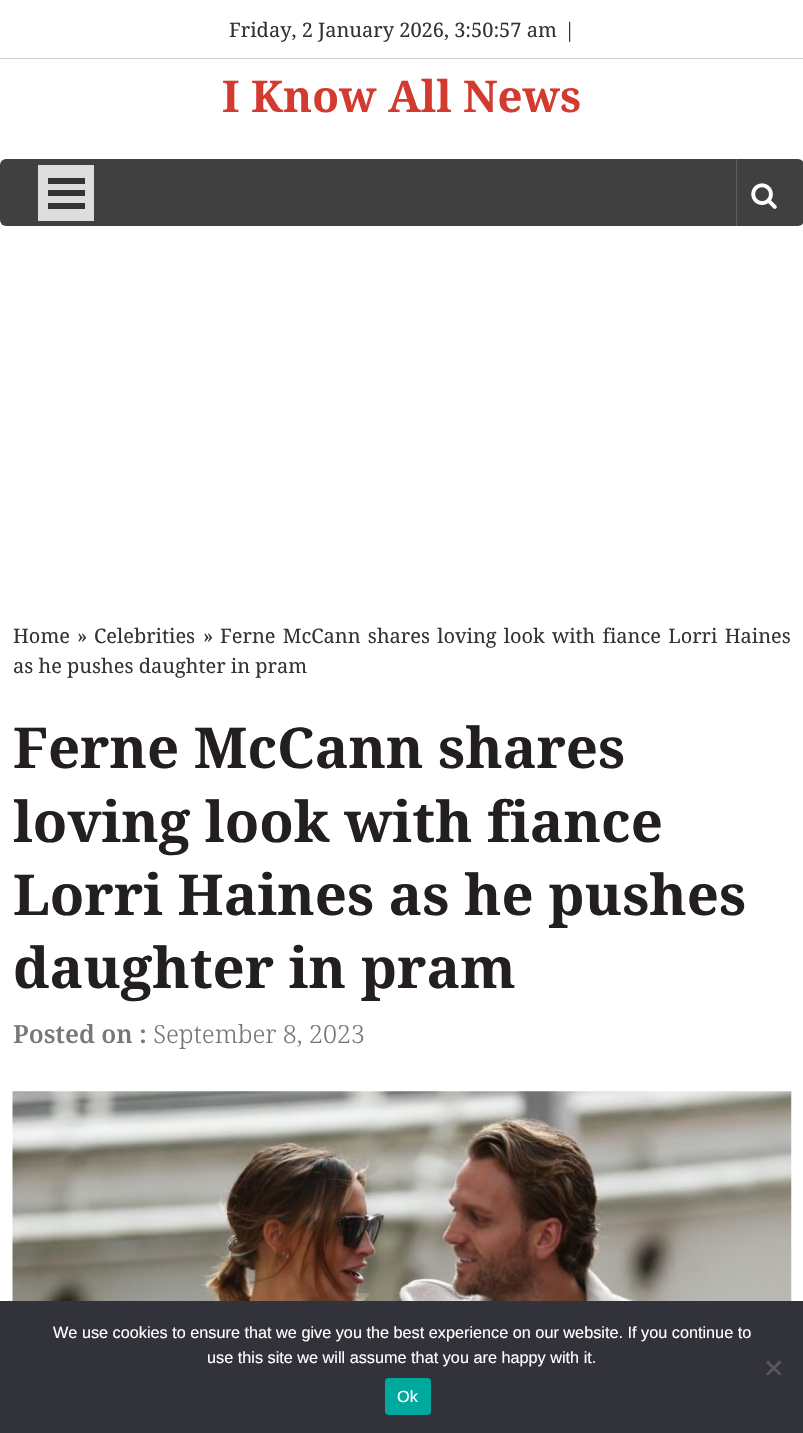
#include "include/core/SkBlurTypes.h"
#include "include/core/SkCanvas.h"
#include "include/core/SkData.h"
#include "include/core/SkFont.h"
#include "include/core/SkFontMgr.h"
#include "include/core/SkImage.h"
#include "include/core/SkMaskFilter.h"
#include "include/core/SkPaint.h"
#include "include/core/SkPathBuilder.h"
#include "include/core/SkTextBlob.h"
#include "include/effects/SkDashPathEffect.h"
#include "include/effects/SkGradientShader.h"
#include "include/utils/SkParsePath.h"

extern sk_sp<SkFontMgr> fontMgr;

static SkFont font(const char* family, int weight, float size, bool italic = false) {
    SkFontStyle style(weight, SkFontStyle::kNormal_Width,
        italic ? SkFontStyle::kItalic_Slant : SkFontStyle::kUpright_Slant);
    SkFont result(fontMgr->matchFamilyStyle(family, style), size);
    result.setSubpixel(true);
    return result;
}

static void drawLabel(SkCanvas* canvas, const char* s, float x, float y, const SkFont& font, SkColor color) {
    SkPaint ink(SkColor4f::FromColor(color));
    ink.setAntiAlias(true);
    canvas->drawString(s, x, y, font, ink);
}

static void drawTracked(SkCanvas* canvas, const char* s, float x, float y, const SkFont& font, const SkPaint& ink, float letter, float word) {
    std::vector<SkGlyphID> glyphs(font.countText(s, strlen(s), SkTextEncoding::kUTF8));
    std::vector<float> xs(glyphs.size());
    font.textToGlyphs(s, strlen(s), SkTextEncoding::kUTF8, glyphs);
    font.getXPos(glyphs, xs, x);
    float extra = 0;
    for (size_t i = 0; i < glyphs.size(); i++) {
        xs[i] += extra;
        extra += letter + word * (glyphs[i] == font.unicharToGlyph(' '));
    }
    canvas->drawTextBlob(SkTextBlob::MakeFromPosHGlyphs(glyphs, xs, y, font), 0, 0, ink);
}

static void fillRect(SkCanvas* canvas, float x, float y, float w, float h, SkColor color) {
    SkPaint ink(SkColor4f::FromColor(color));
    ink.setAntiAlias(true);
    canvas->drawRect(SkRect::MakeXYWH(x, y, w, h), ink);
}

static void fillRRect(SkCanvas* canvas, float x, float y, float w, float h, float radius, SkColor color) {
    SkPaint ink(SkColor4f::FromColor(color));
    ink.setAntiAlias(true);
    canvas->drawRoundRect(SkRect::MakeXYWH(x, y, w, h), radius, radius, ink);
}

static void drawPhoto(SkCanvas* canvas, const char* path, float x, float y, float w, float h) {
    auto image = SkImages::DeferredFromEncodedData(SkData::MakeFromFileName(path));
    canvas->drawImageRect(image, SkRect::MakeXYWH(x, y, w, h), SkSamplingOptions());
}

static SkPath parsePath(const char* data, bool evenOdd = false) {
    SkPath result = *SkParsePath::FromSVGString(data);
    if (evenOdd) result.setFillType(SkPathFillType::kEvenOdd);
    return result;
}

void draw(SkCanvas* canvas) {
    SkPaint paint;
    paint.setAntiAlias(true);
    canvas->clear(0xFFFFFFFF);
    fillRect(canvas, 0, 58, 803, 1, 0xFFCCCCCC);
    SkFont font1 = font("Noto Serif", 400, 20);
    drawLabel(canvas, "Friday, 2 January 2026, 3:50:57 am", 229, 37, font1, 0xFF333333);
    drawLabel(canvas, "|", 564, 37, font1, 0xFF333333);
    SkFont font2 = font("Noto Serif", 700, 43.75f);
    drawLabel(canvas, "I Know All News", 222, 112, font2, 0xFFD33B30);
    fillRRect(canvas, 0, 159, 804, 67, 6, 0xFF404040);
    fillRect(canvas, 38, 165, 56, 56, 0xFFDDDDDD);
    fillRect(canvas, 48, 178, 37, 6, 0xFF333333);
    fillRect(canvas, 48, 190, 37, 6, 0xFF333333);
    fillRect(canvas, 48, 203, 37, 6, 0xFF333333);
    fillRect(canvas, 736, 159, 1, 67, 0xFF5D5D5D);
    drawPhoto(canvas, "assets/img1.png", 751, 183, 26, 26);
    drawLabel(canvas, "Home", 13, 643, font1, 0xFF333333);
    drawLabel(canvas, "»", 77, 643, font1, 0xFF333333);
    drawLabel(canvas, "Celebrities", 94, 643, font1, 0xFF333333);
    drawLabel(canvas, "»", 203, 643, font1, 0xFF333333);
    paint.setColor(0xFF333333);
    drawTracked(canvas, "Ferne McCann shares loving look with fiance Lorri Haines", 220, 643, font1, paint, 0, 2);
    drawLabel(canvas, "as he pushes daughter in pram", 13, 673, font1, 0xFF333333);
    SkFont font3 = font("Noto Serif", 700, 56.25f);
    drawLabel(canvas, "Ferne McCann shares", 13, 768, font3, 0xFF231F20);
    drawLabel(canvas, "loving look with fiance", 13, 842, font3, 0xFF231F20);
    drawLabel(canvas, "Lorri Haines as he pushes", 13, 915, font3, 0xFF231F20);
    drawLabel(canvas, "daughter in pram", 13, 988, font3, 0xFF231F20);
    SkFont font4 = font("Noto Serif", 600, 25);
    drawLabel(canvas, "Posted on :", 13, 1043, font4, 0xFF777777);
    SkFont font5 = font("Noto Serif", 300, 25);
    drawLabel(canvas, "September 8, 2023", 153, 1043, font5, 0xFF777777);
    drawPhoto(canvas, "assets/img2.png", 12, 1091, 780, 210);
    fillRect(canvas, 0, 1301, 803, 132, 0xFF32323A);
    SkFont font6 = font("Liberation Sans", 400, 16.25f);
    drawLabel(canvas, "We use cookies to ensure that we give you the best experience on our website. If you continue to", 53, 1338, font6, 0xFFFFFFFF);
    drawLabel(canvas, "use this site we will assume that you are happy with it.", 207, 1363, font6, 0xFFFFFFFF);
    paint.setColor(0xFF59595D);
    canvas->drawPath(parsePath("M779.5 1360.5L781.5 1362.5L768 1375.5L766 1374Z"), paint);
    canvas->drawPath(parsePath("M766 1362.5L768 1360.5L781.5 1374L779.5 1375.5Z"), paint);
    fillRRect(canvas, 385, 1378, 46, 37, 4, 0xFF00A99D);
    drawLabel(canvas, "Ok", 397, 1402, font6, 0xFFFFFFFF);
}
